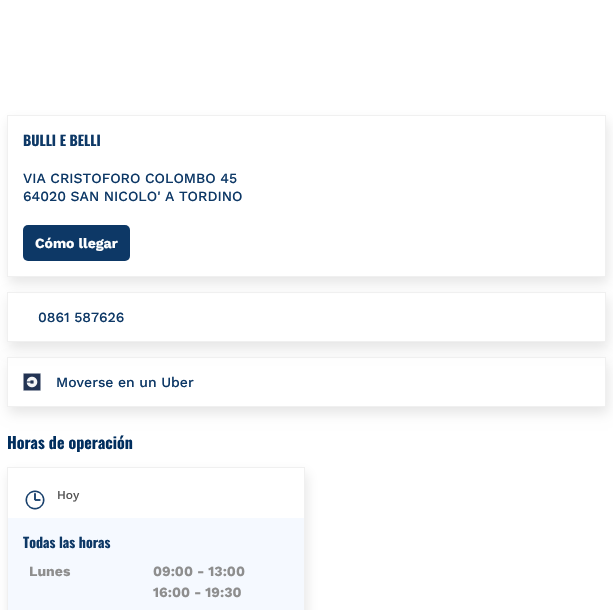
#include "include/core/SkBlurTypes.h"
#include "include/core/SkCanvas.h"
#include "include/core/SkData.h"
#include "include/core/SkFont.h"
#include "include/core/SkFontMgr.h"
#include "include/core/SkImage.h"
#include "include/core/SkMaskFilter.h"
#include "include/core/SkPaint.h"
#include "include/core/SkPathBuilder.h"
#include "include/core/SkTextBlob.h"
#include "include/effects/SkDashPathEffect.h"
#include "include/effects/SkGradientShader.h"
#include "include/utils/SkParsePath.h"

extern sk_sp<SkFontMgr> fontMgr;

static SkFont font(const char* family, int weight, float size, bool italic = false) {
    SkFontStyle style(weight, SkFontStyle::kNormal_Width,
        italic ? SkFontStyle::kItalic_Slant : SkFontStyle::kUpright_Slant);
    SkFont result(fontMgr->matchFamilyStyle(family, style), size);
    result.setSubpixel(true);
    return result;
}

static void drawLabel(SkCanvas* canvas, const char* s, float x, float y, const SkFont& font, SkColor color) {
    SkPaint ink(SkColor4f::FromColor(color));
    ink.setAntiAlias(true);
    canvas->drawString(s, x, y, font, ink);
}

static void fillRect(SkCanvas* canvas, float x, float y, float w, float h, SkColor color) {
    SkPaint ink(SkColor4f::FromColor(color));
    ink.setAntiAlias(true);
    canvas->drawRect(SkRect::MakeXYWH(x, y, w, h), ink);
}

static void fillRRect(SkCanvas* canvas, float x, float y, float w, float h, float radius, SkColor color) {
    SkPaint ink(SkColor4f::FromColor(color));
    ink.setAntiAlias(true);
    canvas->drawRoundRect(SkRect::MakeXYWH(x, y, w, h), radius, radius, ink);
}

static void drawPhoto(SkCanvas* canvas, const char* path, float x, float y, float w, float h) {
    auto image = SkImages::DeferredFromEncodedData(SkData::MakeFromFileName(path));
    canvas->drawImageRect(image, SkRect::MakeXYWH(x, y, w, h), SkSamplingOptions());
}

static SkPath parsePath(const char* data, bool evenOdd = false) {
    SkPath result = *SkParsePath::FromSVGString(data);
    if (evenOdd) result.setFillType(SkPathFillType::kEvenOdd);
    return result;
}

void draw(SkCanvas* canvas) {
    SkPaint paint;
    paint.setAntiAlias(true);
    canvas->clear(0xFFFFFFFF);
    canvas->save();
    canvas->clipPath(parsePath("M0 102H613V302H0ZM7 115H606V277H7Z", true), true);
    paint.setColor(0x1A0D0D0D);
    paint.setMaskFilter(SkMaskFilter::MakeBlur(kNormal_SkBlurStyle, 6));
    canvas->drawRect(SkRect::MakeXYWH(9, 121, 599, 162), paint);
    paint.setMaskFilter(nullptr);
    canvas->restore();
    paint.setStroke(true);
    paint.setStrokeWidth(1);
    paint.setColor(0xFFF0F0F0);
    canvas->drawRect(SkRect::MakeXYWH(7.5f, 115.5f, 598, 161), paint);
    SkFont font1 = font("Oswald", 700, 14);
    drawLabel(canvas, "BULLI E BELLI", 23, 146, font1, 0xFF0D3866);
    SkFont font2 = font("Work Sans", 500, 14);
    drawLabel(canvas, "VIA CRISTOFORO COLOMBO 45", 23, 183, font2, 0xFF0D3866);
    drawLabel(canvas, "64020 SAN NICOLO' A TORDINO", 23, 201, font2, 0xFF0D3866);
    fillRRect(canvas, 23, 225, 107, 36, 5, 0xFF0D3866);
    SkFont font3 = font("Work Sans", 700, 14);
    drawLabel(canvas, "Cómo llegar", 35, 248, font3, 0xFFFFFFFF);
    canvas->save();
    canvas->clipPath(parsePath("M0 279H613V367H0ZM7 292H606V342H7Z", true), true);
    paint.setStroke(false);
    paint.setColor(0x1A000000);
    paint.setMaskFilter(SkMaskFilter::MakeBlur(kNormal_SkBlurStyle, 6));
    canvas->drawRect(SkRect::MakeXYWH(9, 298, 599, 50), paint);
    paint.setMaskFilter(nullptr);
    canvas->restore();
    paint.setStroke(true);
    paint.setColor(0xFFF0F0F0);
    canvas->drawRect(SkRect::MakeXYWH(7.5f, 292.5f, 598, 49), paint);
    drawLabel(canvas, "0861 587626", 38, 322, font2, 0xFF0D3866);
    canvas->save();
    canvas->clipPath(parsePath("M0 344H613V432H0ZM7 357H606V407H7Z", true), true);
    paint.setStroke(false);
    paint.setColor(0x1A000000);
    paint.setMaskFilter(SkMaskFilter::MakeBlur(kNormal_SkBlurStyle, 6));
    canvas->drawRect(SkRect::MakeXYWH(9, 363, 599, 50), paint);
    paint.setMaskFilter(nullptr);
    canvas->restore();
    paint.setStroke(true);
    paint.setColor(0xFFF0F0F0);
    canvas->drawRect(SkRect::MakeXYWH(7.5f, 357.5f, 598, 49), paint);
    drawPhoto(canvas, "assets/img1.png", 23, 373, 18, 18);
    drawLabel(canvas, "Moverse en un Uber", 56, 387, font2, 0xFF0D3866);
    SkFont font4 = font("Oswald", 700, 16);
    drawLabel(canvas, "Horas de operación", 7, 449, font4, 0xFF002E5E);
    canvas->save();
    canvas->clipPath(parsePath("M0 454H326V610H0ZM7 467H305V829H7Z", true), true);
    paint.setStroke(false);
    paint.setColor(0x1A0D0D0D);
    paint.setMaskFilter(SkMaskFilter::MakeBlur(kNormal_SkBlurStyle, 6));
    canvas->drawRect(SkRect::MakeXYWH(9, 473, 298, 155), paint);
    paint.setMaskFilter(nullptr);
    canvas->restore();
    paint.setStroke(true);
    paint.setColor(0xFFF0F0F0);
    canvas->drawRect(SkRect::MakeXYWH(7.5f, 467.5f, 297, 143), paint);
    drawPhoto(canvas, "assets/img2.png", 25, 490, 20, 20);
    SkFont font5 = font("Work Sans", 500, 12);
    drawLabel(canvas, "Hoy", 57, 499, font5, 0xFF535353);
    fillRect(canvas, 8, 518, 296, 92, 0xFFF5F9FF);
    drawLabel(canvas, "Todas las horas", 23, 548, font1, 0xFF0D3866);
    drawLabel(canvas, "Lunes", 29, 576, font3, 0xFF8E8E8E);
    drawLabel(canvas, "09:00 - 13:00", 153, 576, font3, 0xFF8E8E8E);
    drawLabel(canvas, "16:00 - 19:30", 153, 597, font3, 0xFF8E8E8E);
}
